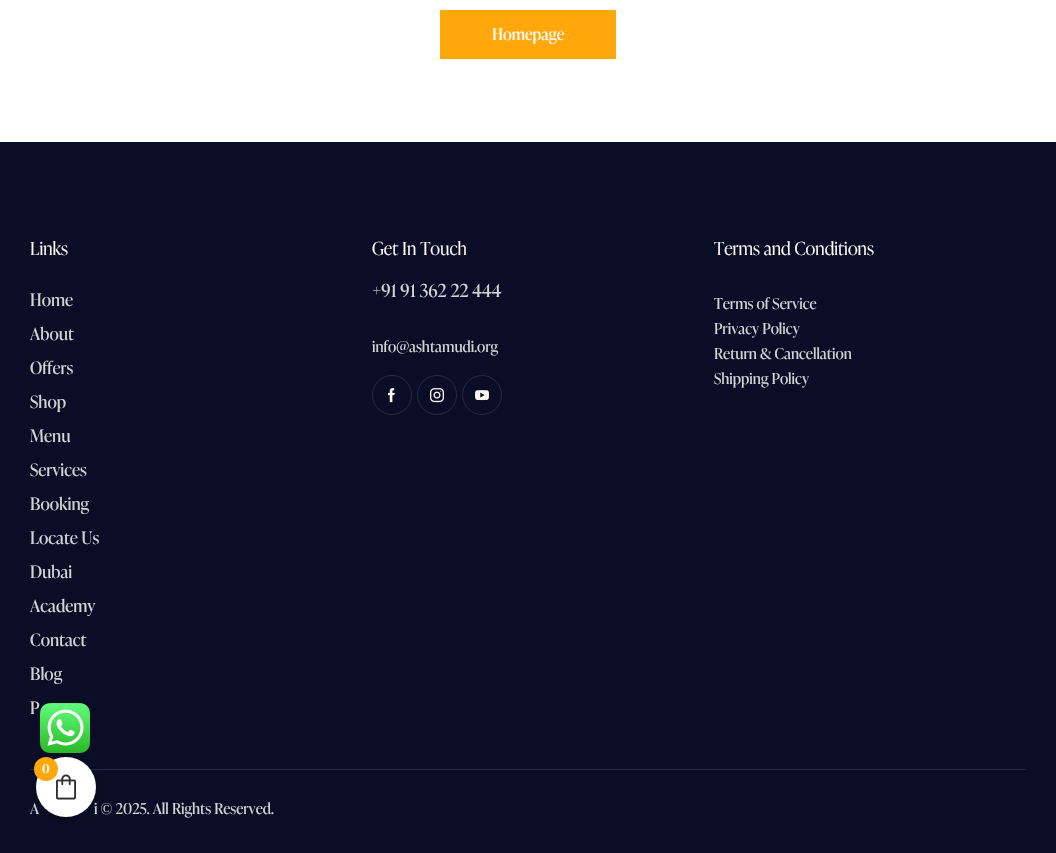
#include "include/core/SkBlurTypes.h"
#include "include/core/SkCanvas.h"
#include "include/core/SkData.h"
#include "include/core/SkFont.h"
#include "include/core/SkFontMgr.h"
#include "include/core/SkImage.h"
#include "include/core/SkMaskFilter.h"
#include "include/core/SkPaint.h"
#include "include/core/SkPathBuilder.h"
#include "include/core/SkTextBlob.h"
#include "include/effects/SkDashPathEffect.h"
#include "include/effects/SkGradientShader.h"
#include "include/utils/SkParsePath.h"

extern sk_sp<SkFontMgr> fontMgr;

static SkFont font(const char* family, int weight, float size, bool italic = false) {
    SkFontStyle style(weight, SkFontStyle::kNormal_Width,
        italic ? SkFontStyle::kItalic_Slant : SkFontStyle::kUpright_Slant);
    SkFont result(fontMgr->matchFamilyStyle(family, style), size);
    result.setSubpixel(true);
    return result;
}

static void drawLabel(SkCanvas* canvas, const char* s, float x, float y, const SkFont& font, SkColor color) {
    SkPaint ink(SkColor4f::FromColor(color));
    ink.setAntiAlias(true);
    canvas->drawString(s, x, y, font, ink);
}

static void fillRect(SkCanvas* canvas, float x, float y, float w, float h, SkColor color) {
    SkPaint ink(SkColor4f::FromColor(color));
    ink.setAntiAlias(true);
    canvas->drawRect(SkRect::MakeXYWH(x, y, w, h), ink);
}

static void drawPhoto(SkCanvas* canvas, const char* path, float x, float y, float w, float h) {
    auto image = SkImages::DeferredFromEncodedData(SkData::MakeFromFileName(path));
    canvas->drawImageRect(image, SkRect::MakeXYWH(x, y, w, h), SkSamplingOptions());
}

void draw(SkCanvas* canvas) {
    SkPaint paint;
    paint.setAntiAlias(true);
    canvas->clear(0xFFFFFFFF);
    fillRect(canvas, 440, 10, 176, 49, 0xFFFFA70B);
    SkFont font1 = font("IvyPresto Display", 400, 16);
    drawLabel(canvas, "Homepage", 492, 40, font1, 0xFFFFFFFF);
    fillRect(canvas, 0, 142, 1056, 711, 0xFF0B0D26);
    SkFont font2 = font("IvyPresto Display", 300, 18);
    drawLabel(canvas, "Links", 30, 255, font2, 0xFFFBF6F2);
    SkFont font3 = font("IvyPresto Display", 400, 17);
    drawLabel(canvas, "Home", 30, 306, font3, 0xFFD2D3D5);
    drawLabel(canvas, "About", 30, 340, font3, 0xFFD2D3D5);
    drawLabel(canvas, "Offers", 30, 374, font3, 0xFFD2D3D5);
    drawLabel(canvas, "Shop", 30, 408, font3, 0xFFD2D3D5);
    drawLabel(canvas, "Menu", 30, 442, font3, 0xFFD2D3D5);
    drawLabel(canvas, "Services", 30, 476, font3, 0xFFD2D3D5);
    drawLabel(canvas, "Booking", 30, 510, font3, 0xFFD2D3D5);
    drawLabel(canvas, "Locate Us", 30, 544, font3, 0xFFD2D3D5);
    drawLabel(canvas, "Dubai", 30, 578, font3, 0xFFD2D3D5);
    drawLabel(canvas, "Academy", 30, 612, font3, 0xFFD2D3D5);
    drawLabel(canvas, "Contact", 30, 646, font3, 0xFFD2D3D5);
    drawLabel(canvas, "Blog", 30, 680, font3, 0xFFD2D3D5);
    drawLabel(canvas, "P", 30, 714, font3, 0xFFD2D3D5);
    drawLabel(canvas, "Get In Touch", 372, 255, font2, 0xFFFBF6F2);
    SkFont font4 = font("IvyPresto Display", 400, 18);
    drawLabel(canvas, "+91 91 362 22 444", 372, 297, font4, 0xFFD2D3D5);
    SkFont font5 = font("IvyPresto Display", 400, 15);
    drawLabel(canvas, "info@ashtamudi.org", 372, 352, font5, 0xFFD2D3D5);
    paint.setStroke(true);
    paint.setStrokeWidth(1);
    paint.setColor(0xFF242A40);
    canvas->drawCircle(392, 395, 19.5f, paint);
    drawPhoto(canvas, "assets/img1.png", 388, 388, 7, 15);
    canvas->drawCircle(437, 395, 19.5f, paint);
    drawPhoto(canvas, "assets/img2.png", 430, 388, 14, 15);
    canvas->drawCircle(482, 395, 19.5f, paint);
    drawPhoto(canvas, "assets/img3.png", 475, 390, 14, 11);
    drawLabel(canvas, "Terms and Conditions", 714, 255, font2, 0xFFFBF6F2);
    drawLabel(canvas, "Terms of Service", 714, 309, font5, 0xFFD2D3D5);
    drawLabel(canvas, "Privacy Policy", 714, 334, font5, 0xFFD2D3D5);
    drawLabel(canvas, "Return & Cancellation", 714, 359, font5, 0xFFD2D3D5);
    drawLabel(canvas, "Shipping Policy", 714, 384, font5, 0xFFD2D3D5);
    fillRect(canvas, 30, 769, 996, 1, 0xFF242A40);
    drawLabel(canvas, "A", 30, 814, font5, 0xFFD2D3D5);
    drawLabel(canvas, "i © 2025. All Rights Reserved.", 94, 814, font5, 0xFFD2D3D5);
    paint.setStroke(false);
    paint.setColor(0x40000000);
    paint.setMaskFilter(SkMaskFilter::MakeBlur(kNormal_SkBlurStyle, 4));
    canvas->drawRoundRect(SkRect::MakeXYWH(36, 759, 60, 60), 30, 30, paint);
    paint.setMaskFilter(nullptr);
    drawPhoto(canvas, "assets/img4.png", 40, 703, 50, 50);
    paint.setColor(0xFFFFFFFF);
    canvas->drawCircle(66, 787, 30, paint);
    drawPhoto(canvas, "assets/img5.png", 56, 774, 20, 26);
    paint.setColor(0xFFFFA70B);
    canvas->drawCircle(46, 769, 12, paint);
    SkFont font6 = font("IvyPresto Display", 600, 12);
    drawLabel(canvas, "0", 42, 773, font6, 0xFFFFFFFF);
}
